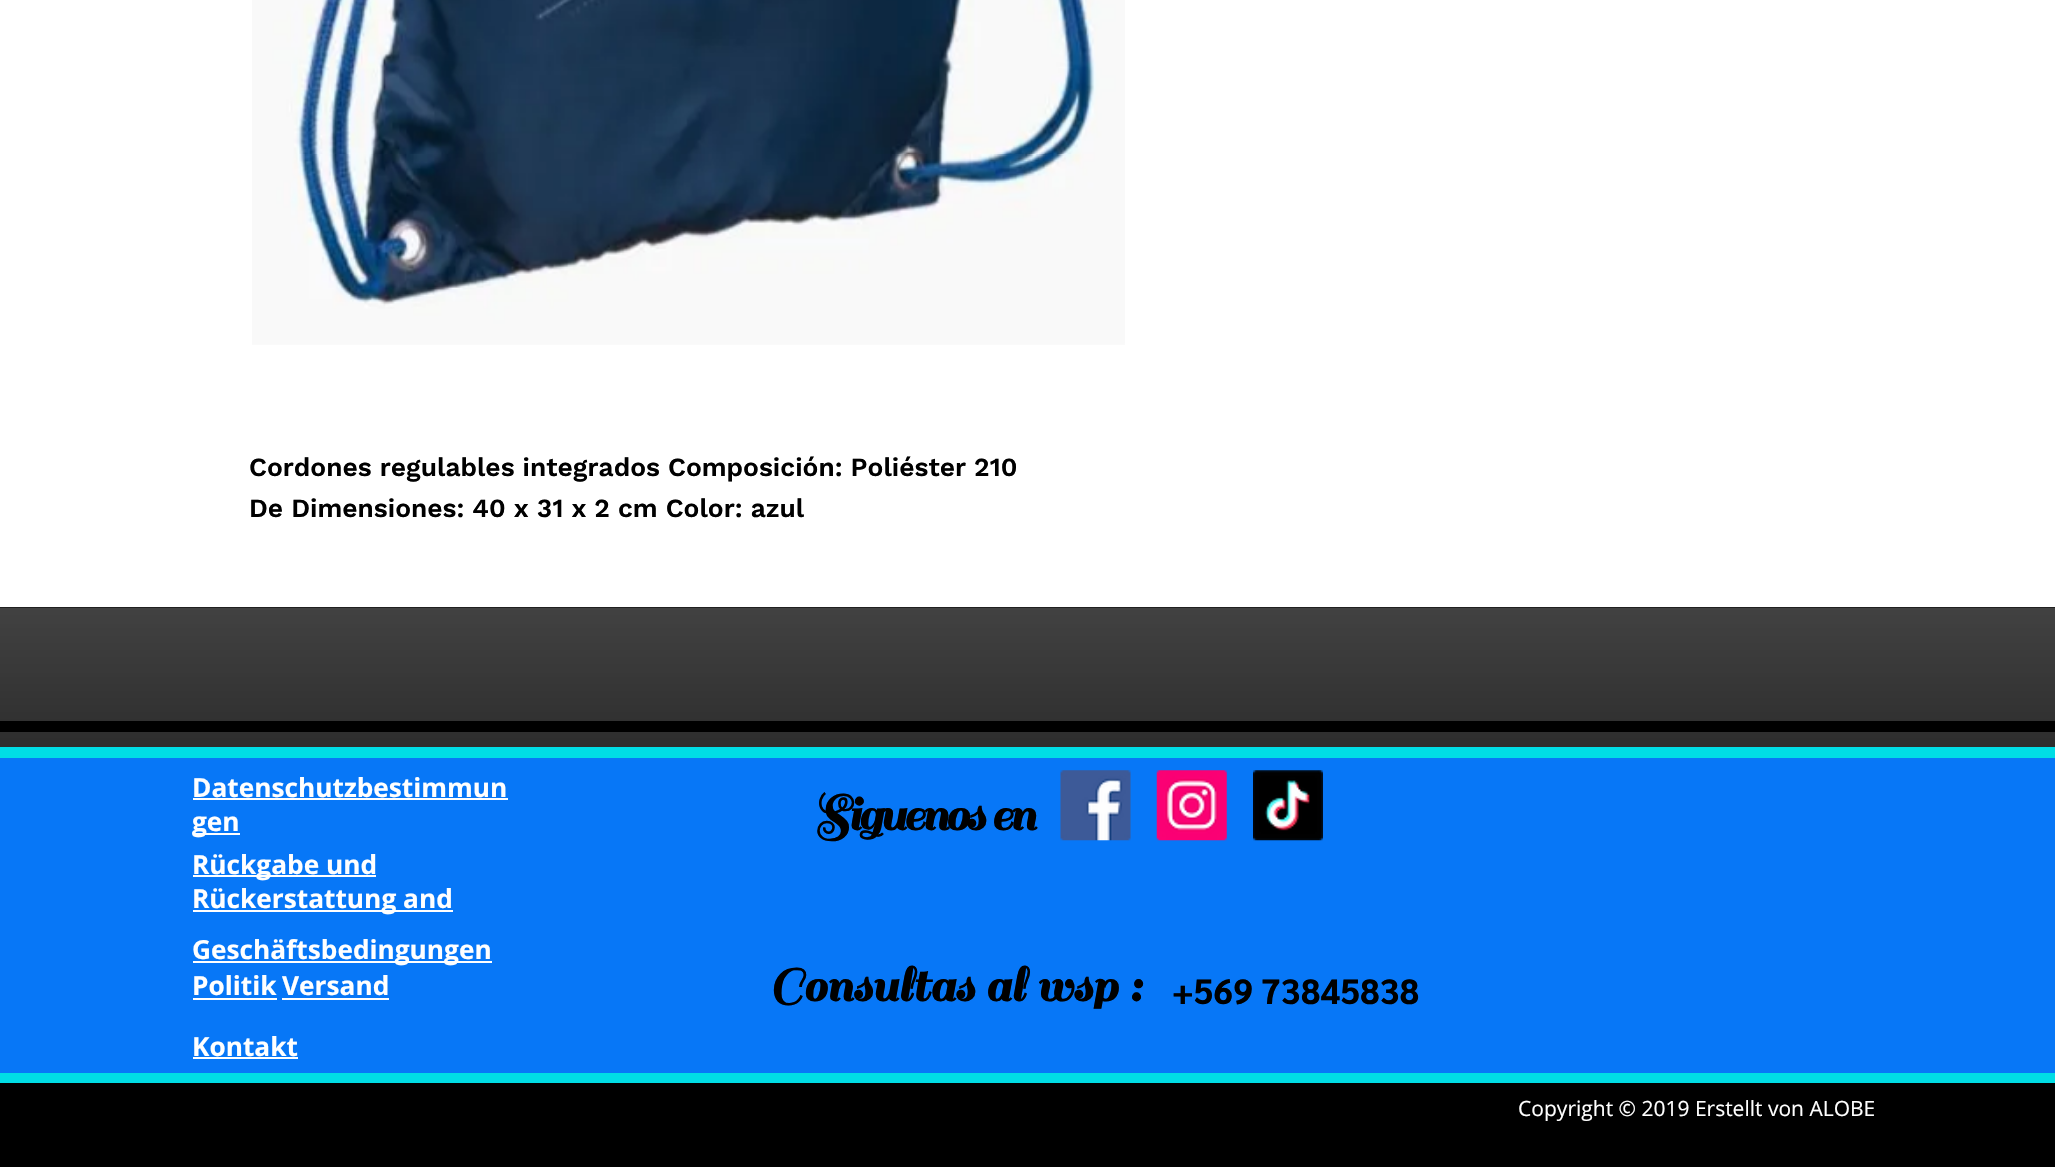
#include "include/core/SkBlurTypes.h"
#include "include/core/SkCanvas.h"
#include "include/core/SkData.h"
#include "include/core/SkFont.h"
#include "include/core/SkFontMgr.h"
#include "include/core/SkImage.h"
#include "include/core/SkMaskFilter.h"
#include "include/core/SkPaint.h"
#include "include/core/SkPathBuilder.h"
#include "include/core/SkTextBlob.h"
#include "include/effects/SkDashPathEffect.h"
#include "include/effects/SkGradientShader.h"
#include "include/utils/SkParsePath.h"

extern sk_sp<SkFontMgr> fontMgr;

static SkFont font(const char* family, int weight, float size, bool italic = false) {
    SkFontStyle style(weight, SkFontStyle::kNormal_Width,
        italic ? SkFontStyle::kItalic_Slant : SkFontStyle::kUpright_Slant);
    SkFont result(fontMgr->matchFamilyStyle(family, style), size);
    result.setSubpixel(true);
    return result;
}

static void drawLabel(SkCanvas* canvas, const char* s, float x, float y, const SkFont& font, SkColor color) {
    SkPaint ink(SkColor4f::FromColor(color));
    ink.setAntiAlias(true);
    canvas->drawString(s, x, y, font, ink);
}

static void drawTracked(SkCanvas* canvas, const char* s, float x, float y, const SkFont& font, const SkPaint& ink, float letter, float word) {
    std::vector<SkGlyphID> glyphs(font.countText(s, strlen(s), SkTextEncoding::kUTF8));
    std::vector<float> xs(glyphs.size());
    font.textToGlyphs(s, strlen(s), SkTextEncoding::kUTF8, glyphs);
    font.getXPos(glyphs, xs, x);
    float extra = 0;
    for (size_t i = 0; i < glyphs.size(); i++) {
        xs[i] += extra;
        extra += letter + word * (glyphs[i] == font.unicharToGlyph(' '));
    }
    canvas->drawTextBlob(SkTextBlob::MakeFromPosHGlyphs(glyphs, xs, y, font), 0, 0, ink);
}

static void fillRect(SkCanvas* canvas, float x, float y, float w, float h, SkColor color) {
    SkPaint ink(SkColor4f::FromColor(color));
    ink.setAntiAlias(true);
    canvas->drawRect(SkRect::MakeXYWH(x, y, w, h), ink);
}

static void drawPhoto(SkCanvas* canvas, const char* path, float x, float y, float w, float h) {
    auto image = SkImages::DeferredFromEncodedData(SkData::MakeFromFileName(path));
    canvas->drawImageRect(image, SkRect::MakeXYWH(x, y, w, h), SkSamplingOptions());
}

void draw(SkCanvas* canvas) {
    SkPaint paint;
    paint.setAntiAlias(true);
    canvas->clear(0xFFFFFFFF);
    drawPhoto(canvas, "assets/img1.png", 252, 0, 873, 345);
    SkFont font1 = font("Work Sans", 600, 26.25f);
    drawLabel(canvas, "Cordones regulables integrados Composición: Poliéster 210", 249, 476, font1, 0xFF000000);
    drawLabel(canvas, "De Dimensiones: 40 x 31 x 2 cm Color: azul", 249, 517, font1, 0xFF000000);
    fillRect(canvas, 0, 607, 2055, 560, 0xFF000000);
    drawPhoto(canvas, "assets/img2.png", 0, 607, 2055, 140);
    fillRect(canvas, 0, 721, 2055, 11, 0xFF000000);
    fillRect(canvas, 0, 747, 2055, 11, 0xFF00DDE5);
    fillRect(canvas, 0, 1073, 2055, 10, 0xFF00DDE5);
    fillRect(canvas, 0, 758, 2055, 315, 0xFF0777F7);
    SkFont font2 = font("Open Sans", 700, 26.25f);
    drawLabel(canvas, "Datenschutzbestimmun", 192, 797, font2, 0xFFFFFFFF);
    fillRect(canvas, 193, 798, 315, 2, 0xFFFFFFFF);
    fillRect(canvas, 193, 833, 47, 2, 0xFFFFFFFF);
    drawLabel(canvas, "gen", 192, 831, font2, 0xFFFFFFFF);
    SkFont font3 = font("Sail", 700, 52.5f);
    paint.setColor(0xFF000000);
    drawTracked(canvas, "Siguenos en", 813, 830, font3, paint, -2.6f, 0);
    drawPhoto(canvas, "assets/img3.png", 1060, 770, 71, 71);
    drawPhoto(canvas, "assets/img4.png", 1156, 770, 71, 71);
    drawPhoto(canvas, "assets/img5.png", 1253, 770, 70, 71);
    fillRect(canvas, 193, 875, 183, 2, 0xFFFFFFFF);
    drawLabel(canvas, "Rückgabe und", 192, 874, font2, 0xFFFFFFFF);
    fillRect(canvas, 193, 910, 260, 2, 0xFFFFFFFF);
    drawLabel(canvas, "Rückerstattung and", 192, 908, font2, 0xFFFFFFFF);
    fillRect(canvas, 193, 961, 299, 2, 0xFFFFFFFF);
    drawLabel(canvas, "Geschäftsbedingungen", 192, 959, font2, 0xFFFFFFFF);
    drawLabel(canvas, "Politik", 192, 995, font2, 0xFFFFFFFF);
    fillRect(canvas, 193, 998, 84, 2, 0xFFFFFFFF);
    drawLabel(canvas, "Versand", 282, 995, font2, 0xFFFFFFFF);
    fillRect(canvas, 282, 998, 107, 2, 0xFFFFFFFF);
    drawLabel(canvas, "Consultas al wsp :", 769, 1001, font3, 0xFF000000);
    SkFont font4 = font("Sarabun", 700, 35);
    drawLabel(canvas, "+569 73845838", 1172, 1004, font4, 0xFF000000);
    drawLabel(canvas, "Kontakt", 192, 1056, font2, 0xFFFFFFFF);
    fillRect(canvas, 193, 1057, 105, 2, 0xFFFFFFFF);
    SkFont font5 = font("Open Sans", 400, 21);
    drawLabel(canvas, "Copyright © 2019 Erstellt von ALOBE", 1518, 1116, font5, 0xFFFFFFFF);
}
